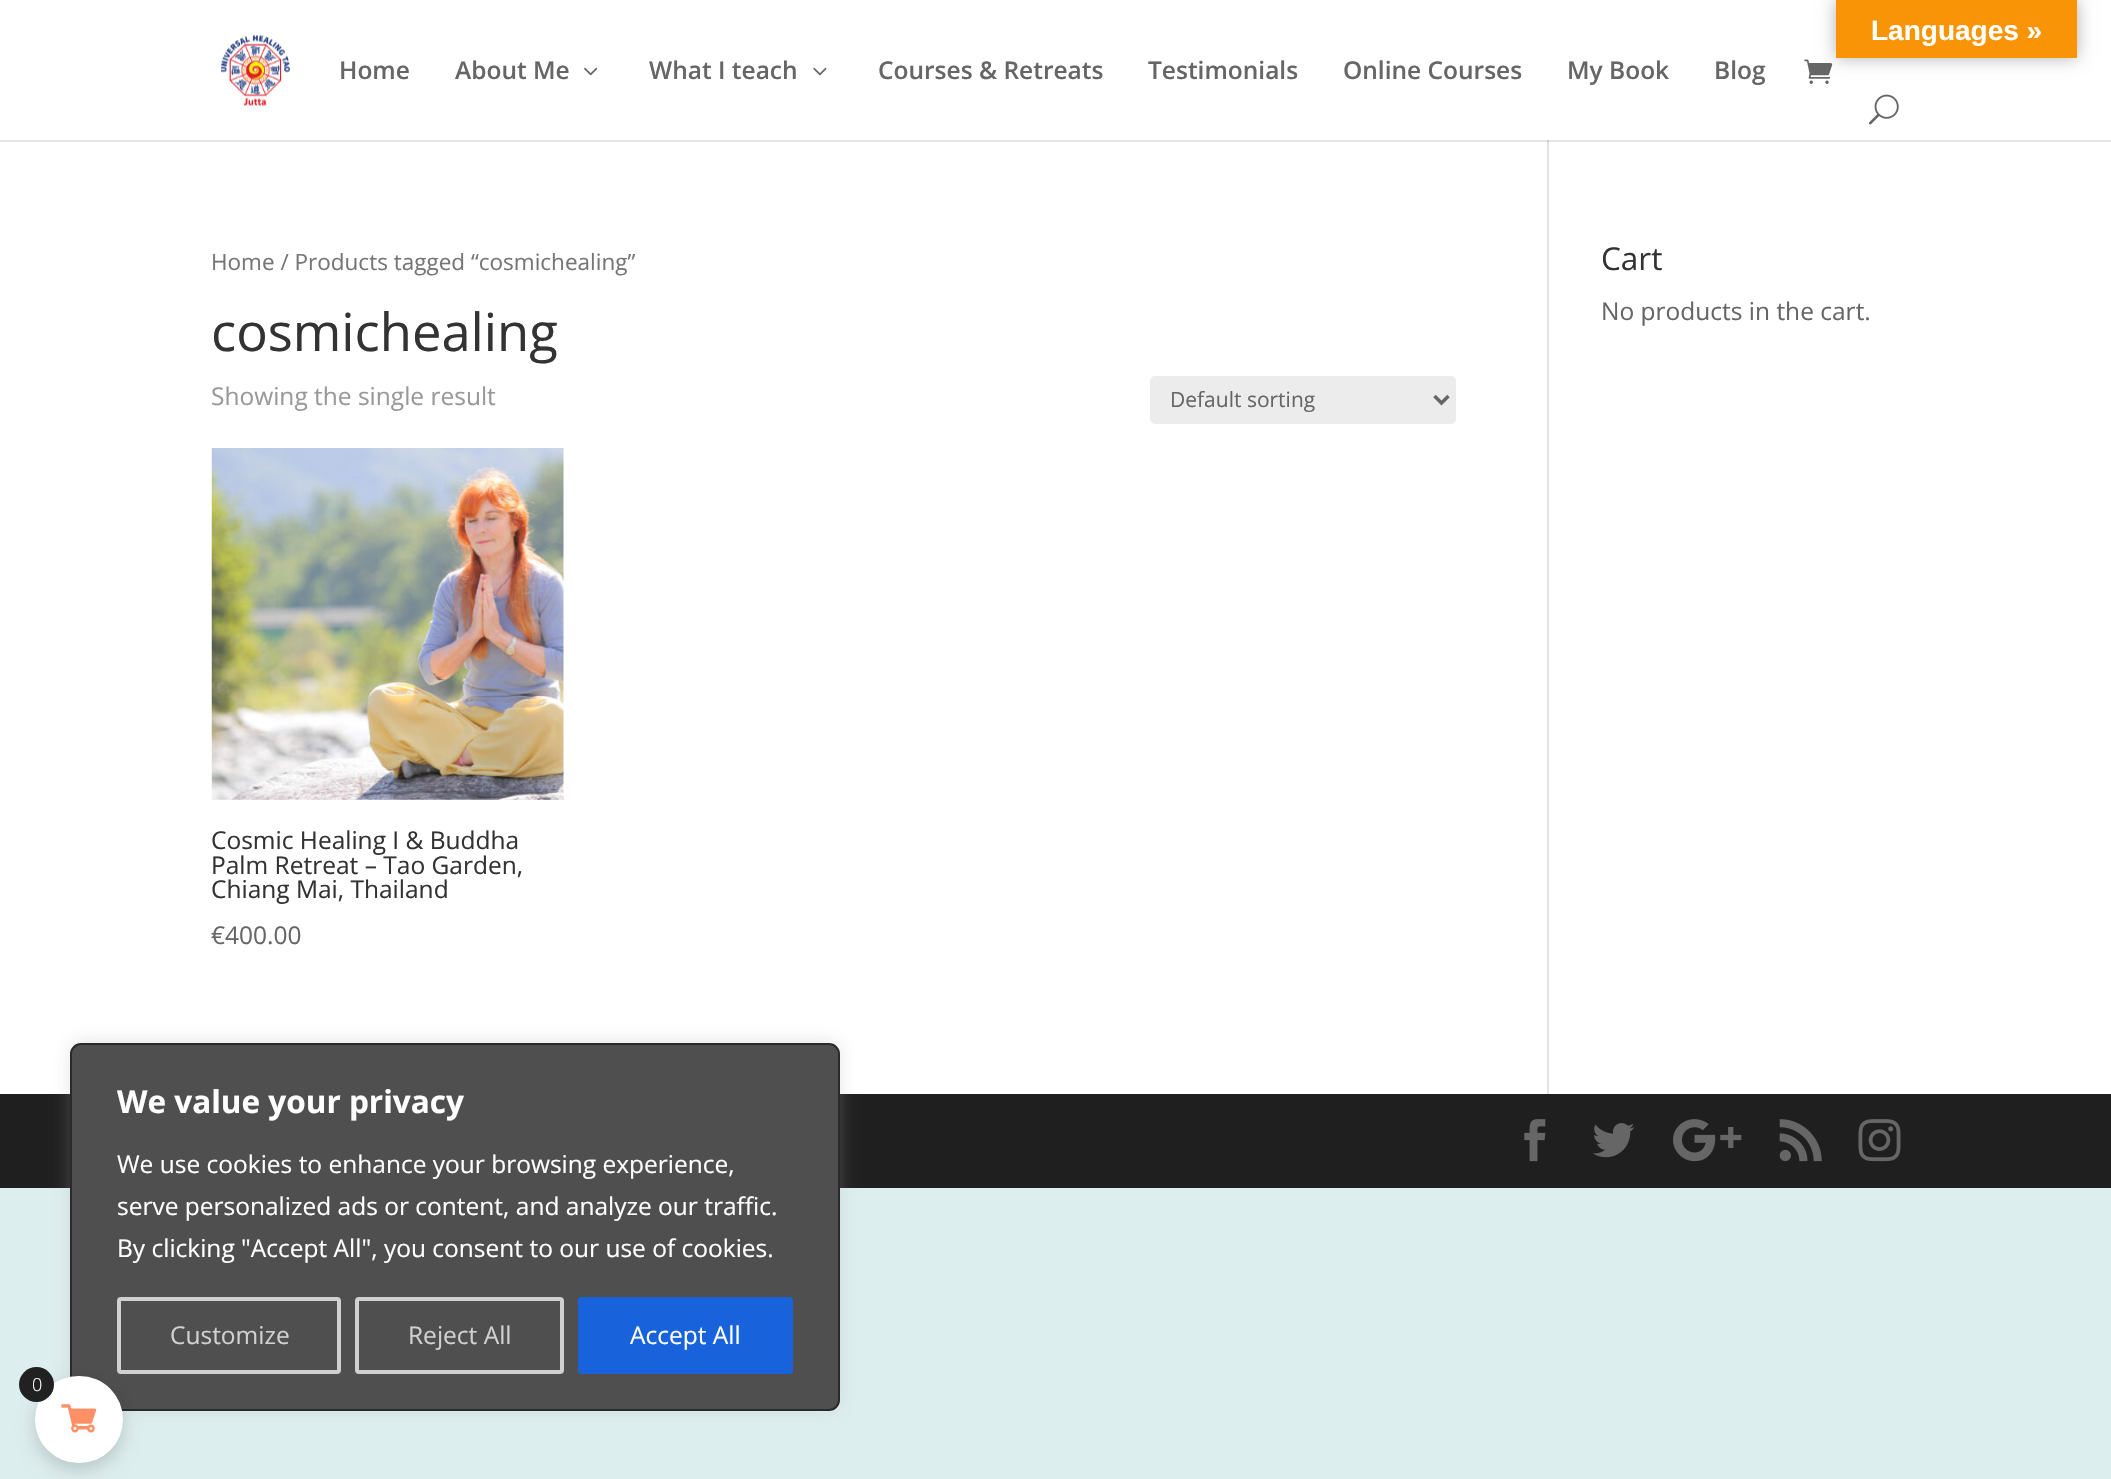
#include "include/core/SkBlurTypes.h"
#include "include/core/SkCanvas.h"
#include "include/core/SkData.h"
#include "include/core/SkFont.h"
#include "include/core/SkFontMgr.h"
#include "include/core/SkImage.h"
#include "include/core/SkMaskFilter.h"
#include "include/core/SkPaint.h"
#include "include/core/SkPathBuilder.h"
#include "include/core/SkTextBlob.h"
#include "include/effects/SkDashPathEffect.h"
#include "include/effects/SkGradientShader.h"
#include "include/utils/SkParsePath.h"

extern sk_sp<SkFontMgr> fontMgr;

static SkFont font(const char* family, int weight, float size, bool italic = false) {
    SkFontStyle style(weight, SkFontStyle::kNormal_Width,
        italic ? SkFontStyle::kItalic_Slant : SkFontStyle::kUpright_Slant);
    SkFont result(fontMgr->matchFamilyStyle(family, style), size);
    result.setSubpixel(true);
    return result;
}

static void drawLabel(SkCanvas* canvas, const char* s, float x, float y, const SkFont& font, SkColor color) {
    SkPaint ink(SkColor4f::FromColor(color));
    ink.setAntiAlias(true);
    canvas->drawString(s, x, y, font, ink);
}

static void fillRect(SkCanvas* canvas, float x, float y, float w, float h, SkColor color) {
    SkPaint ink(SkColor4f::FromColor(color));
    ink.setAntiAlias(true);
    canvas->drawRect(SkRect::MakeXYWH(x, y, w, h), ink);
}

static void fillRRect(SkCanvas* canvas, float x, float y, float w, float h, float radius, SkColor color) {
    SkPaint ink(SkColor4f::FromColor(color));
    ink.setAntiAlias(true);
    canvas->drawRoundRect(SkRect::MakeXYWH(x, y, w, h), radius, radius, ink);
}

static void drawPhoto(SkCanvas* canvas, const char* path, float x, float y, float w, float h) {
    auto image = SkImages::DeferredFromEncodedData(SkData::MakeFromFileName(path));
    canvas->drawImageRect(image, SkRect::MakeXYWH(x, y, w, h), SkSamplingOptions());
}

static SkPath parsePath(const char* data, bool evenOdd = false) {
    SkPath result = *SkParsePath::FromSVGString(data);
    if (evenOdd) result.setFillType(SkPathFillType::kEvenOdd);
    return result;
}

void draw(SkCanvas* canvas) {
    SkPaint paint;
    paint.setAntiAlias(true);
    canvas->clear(0xFFDDEEEF);
    fillRect(canvas, 0, 0, 2111, 140, 0xFFFFFFFF);
    drawPhoto(canvas, "assets/img4.png", 1804, 59, 29, 25);
    paint.setColor(0x4D000000);
    paint.setMaskFilter(SkMaskFilter::MakeBlur(kNormal_SkBlurStyle, 8));
    canvas->drawRect(SkRect::MakeXYWH(1836, 0, 241, 58), paint);
    paint.setMaskFilter(nullptr);
    fillRect(canvas, 1836, 0, 241, 58, 0xFFF89406);
    SkFont font1 = font("Liberation Sans", 700, 28);
    drawLabel(canvas, "Languages »", 1871, 40, font1, 0xFFFFFFFF);
    drawPhoto(canvas, "assets/img1.png", 221, 34, 70, 72);
    SkFont font2 = font("Open Sans", 600, 24.5f);
    drawLabel(canvas, "Home", 339, 79, font2, 0xFF666666);
    drawLabel(canvas, "About Me", 455, 79, font2, 0xFF666666);
    drawPhoto(canvas, "assets/img2.png", 584, 67, 14, 9);
    drawLabel(canvas, "What I teach", 649, 79, font2, 0xFF666666);
    drawPhoto(canvas, "assets/img3.png", 813, 67, 14, 9);
    drawLabel(canvas, "Courses & Retreats", 878, 79, font2, 0xFF666666);
    drawLabel(canvas, "Testimonials", 1148, 79, font2, 0xFF666666);
    drawLabel(canvas, "Online Courses", 1343, 79, font2, 0xFF666666);
    drawLabel(canvas, "My Book", 1567, 79, font2, 0xFF666666);
    drawLabel(canvas, "Blog", 1714, 79, font2, 0xFF666666);
    drawPhoto(canvas, "assets/img5.png", 1868, 94, 31, 31);
    fillRect(canvas, 0, 142, 2111, 952, 0xFFFFFFFF);
    fillRect(canvas, 0, 140, 2111, 2, 0xFFE6E6E6);
    fillRect(canvas, 1547, 140, 2, 954, 0xFFE2E2E2);
    fillRect(canvas, 1547, 140, 2, 2, 0xFFCBCBCB);
    SkFont font3 = font("Open Sans", 400, 22.5f);
    drawLabel(canvas, "Home / Products tagged “cosmichealing”", 211, 270, font3, 0xFF767676);
    SkFont font4 = font("Open Sans", 400, 52.5f);
    drawLabel(canvas, "cosmichealing", 211, 351, font4, 0xFF333333);
    SkFont font5 = font("Open Sans", 400, 24.5f);
    drawLabel(canvas, "Showing the single result", 211, 405, font5, 0xFF999999);
    fillRRect(canvas, 1150, 376, 306, 48, 5, 0xFFECECEC);
    paint.setStroke(true);
    paint.setStrokeWidth(3.5f);
    paint.setColor(0xFF666666);
    canvas->drawPath(parsePath("M1434.5 396L1441.5 403L1448.5 396"), paint);
    SkFont font6 = font("Open Sans", 400, 21);
    drawLabel(canvas, "Default sorting", 1170, 407, font6, 0xFF666666);
    drawPhoto(canvas, "assets/img6.png", 211, 448, 353, 352);
    drawLabel(canvas, "Cosmic Healing I & Buddha", 211, 849, font5, 0xFF333333);
    drawLabel(canvas, "Palm Retreat – Tao Garden,", 211, 874, font5, 0xFF333333);
    drawLabel(canvas, "Chiang Mai, Thailand", 211, 898, font5, 0xFF333333);
    drawLabel(canvas, "€400.00", 211, 944, font5, 0xFF666666);
    SkFont font7 = font("Open Sans", 400, 31.5f);
    drawLabel(canvas, "Cart", 1601, 270, font7, 0xFF333333);
    drawLabel(canvas, "No products in the cart.", 1601, 320, font5, 0xFF666666);
    fillRect(canvas, 0, 1094, 2111, 94, 0xFF1F1F1F);
    drawPhoto(canvas, "assets/img7.png", 1524, 1119, 22, 43);
    drawPhoto(canvas, "assets/img8.png", 1592, 1123, 43, 35);
    drawPhoto(canvas, "assets/img9.png", 1673, 1119, 69, 43);
    drawPhoto(canvas, "assets/img10.png", 1779, 1119, 43, 43);
    drawPhoto(canvas, "assets/img11.png", 1858, 1119, 43, 43);
    paint.setStroke(false);
    paint.setColor(0x4DACABAB);
    paint.setMaskFilter(SkMaskFilter::MakeBlur(kNormal_SkBlurStyle, 9));
    canvas->drawRoundRect(SkRect::MakeXYWH(70, 1041, 770, 368), 11, 11, paint);
    paint.setMaskFilter(nullptr);
    paint.setColor(0xFF4F4F50);
    canvas->drawRoundRect(SkRect::MakeXYWH(71, 1044, 768, 366), 10, 10, paint);
    paint.setStroke(true);
    paint.setStrokeWidth(2);
    paint.setColor(0xFF2A2A2A);
    canvas->drawRoundRect(SkRect::MakeXYWH(71, 1044, 768, 366), 10, 10, paint);
    SkFont font8 = font("Open Sans", 700, 31.5f);
    drawLabel(canvas, "We value your privacy", 117, 1113, font8, 0xFFFFFFFF);
    drawLabel(canvas, "We use cookies to enhance your browsing experience,", 117, 1173, font5, 0xFFFFFFFF);
    drawLabel(canvas, "serve personalized ads or content, and analyze our traffic.", 117, 1215, font5, 0xFFFFFFFF);
    drawLabel(canvas, "By clicking \"Accept All\", you consent to our use of cookies.", 117, 1257, font5, 0xFFFFFFFF);
    paint.setStrokeWidth(4);
    paint.setColor(0xFFD0D0D0);
    canvas->drawRoundRect(SkRect::MakeXYWH(119, 1299, 220, 73), 2, 2, paint);
    drawLabel(canvas, "Customize", 170, 1344, font5, 0xFFD0D0D0);
    canvas->drawRoundRect(SkRect::MakeXYWH(357, 1299, 205, 73), 2, 2, paint);
    drawLabel(canvas, "Reject All", 408, 1344, font5, 0xFFD0D0D0);
    paint.setStroke(false);
    paint.setColor(0xFF1863DC);
    canvas->drawRoundRect(SkRect::MakeXYWH(580, 1299, 211, 73), 2, 2, paint);
    paint.setStroke(true);
    canvas->drawRoundRect(SkRect::MakeXYWH(580, 1299, 211, 73), 2, 2, paint);
    drawLabel(canvas, "Accept All", 630, 1344, font5, 0xFFFFFFFF);
    paint.setStroke(false);
    paint.setColor(0x2B000000);
    paint.setMaskFilter(SkMaskFilter::MakeBlur(kNormal_SkBlurStyle, 9));
    canvas->drawRoundRect(SkRect::MakeXYWH(35, 1383, 88, 87), 43.5f, 43.5f, paint);
    paint.setMaskFilter(nullptr);
    fillRRect(canvas, 35, 1376, 88, 87, 43.5f, 0xFFFFFFFF);
    paint.setColor(0xFF212121);
    canvas->drawCircle(36.5f, 1384.5f, 17.5f, paint);
    SkFont font9 = font("Open Sans", 300, 18);
    drawLabel(canvas, "0", 32, 1391, font9, 0xFFFFFFFF);
    drawPhoto(canvas, "assets/img12.png", 61, 1404, 36, 29);
}
